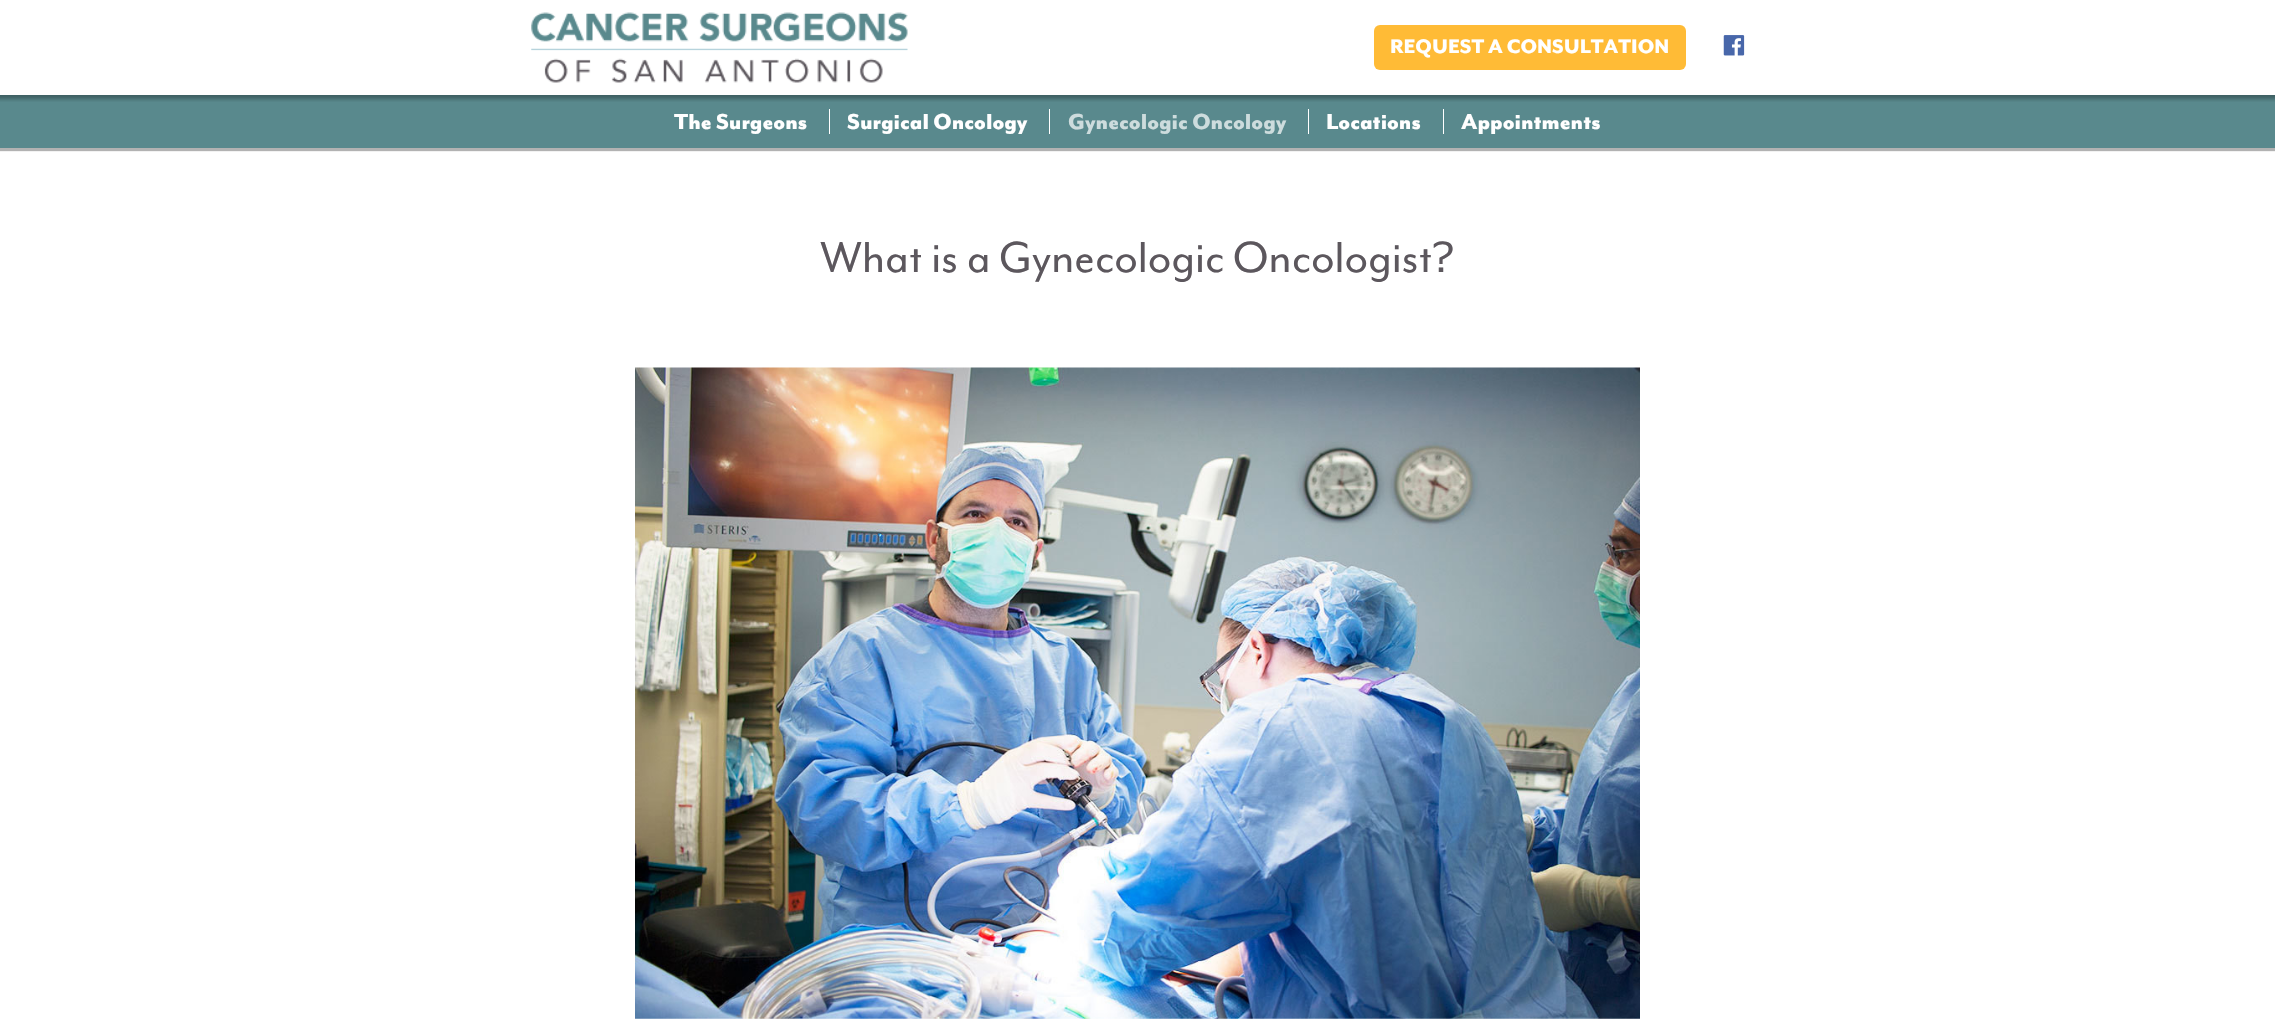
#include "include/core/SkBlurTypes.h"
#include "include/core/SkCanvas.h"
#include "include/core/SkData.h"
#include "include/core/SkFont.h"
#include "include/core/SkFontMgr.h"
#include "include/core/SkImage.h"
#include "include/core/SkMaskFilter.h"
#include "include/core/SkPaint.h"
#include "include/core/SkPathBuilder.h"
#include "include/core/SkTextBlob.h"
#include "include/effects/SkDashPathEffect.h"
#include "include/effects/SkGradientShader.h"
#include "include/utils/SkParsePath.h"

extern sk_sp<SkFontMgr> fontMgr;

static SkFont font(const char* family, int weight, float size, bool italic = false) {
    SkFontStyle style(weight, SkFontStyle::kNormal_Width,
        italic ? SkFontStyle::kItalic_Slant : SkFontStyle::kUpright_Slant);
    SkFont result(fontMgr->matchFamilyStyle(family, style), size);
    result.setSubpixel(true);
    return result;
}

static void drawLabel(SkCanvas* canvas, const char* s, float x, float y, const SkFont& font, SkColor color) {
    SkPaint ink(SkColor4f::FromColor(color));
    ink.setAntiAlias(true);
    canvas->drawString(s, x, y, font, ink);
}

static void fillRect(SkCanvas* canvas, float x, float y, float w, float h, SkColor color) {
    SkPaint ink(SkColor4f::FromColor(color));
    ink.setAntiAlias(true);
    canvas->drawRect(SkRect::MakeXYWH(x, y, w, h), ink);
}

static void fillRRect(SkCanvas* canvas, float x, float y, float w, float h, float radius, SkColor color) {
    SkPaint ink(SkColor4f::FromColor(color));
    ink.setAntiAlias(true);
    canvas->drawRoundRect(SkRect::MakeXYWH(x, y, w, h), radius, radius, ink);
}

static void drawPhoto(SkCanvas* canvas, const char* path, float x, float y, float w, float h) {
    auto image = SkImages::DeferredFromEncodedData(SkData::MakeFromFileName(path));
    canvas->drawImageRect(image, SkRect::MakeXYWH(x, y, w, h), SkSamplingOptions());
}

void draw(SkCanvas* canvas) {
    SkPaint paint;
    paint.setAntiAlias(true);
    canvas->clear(0xFFFFFFFF);
    paint.setColor(0x4D000000);
    paint.setMaskFilter(SkMaskFilter::MakeBlur(kNormal_SkBlurStyle, 0.5f));
    canvas->drawRect(SkRect::MakeXYWH(0, 99, 2275, 52), paint);
    paint.setMaskFilter(nullptr);
    fillRect(canvas, 0, 95, 2275, 53, 0xFF59898D);
    canvas->save();
    canvas->clipRect(SkRect::MakeXYWH(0, 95, 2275, 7));
    paint.setMaskFilter(SkMaskFilter::MakeBlur(kNormal_SkBlurStyle, 2));
    canvas->drawRect(SkRect::MakeXYWH(-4, -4, 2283, 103), paint);
    paint.setMaskFilter(nullptr);
    canvas->restore();
    drawPhoto(canvas, "assets/img1.png", 531, 12, 377, 71);
    fillRRect(canvas, 1374, 25, 312, 45, 6, 0xFFFFBB36);
    SkFont font1 = font("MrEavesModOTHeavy", 900, 22.5f);
    drawLabel(canvas, "REQUEST A CONSULTATION", 1390, 53, font1, 0xFFFFFFFF);
    drawPhoto(canvas, "assets/img2.png", 1723, 35, 22, 21);
    SkFont font2 = font("MrEavesModOTHeavy", 900, 25);
    drawLabel(canvas, "The Surgeons", 674, 129, font2, 0xFFFFFFFF);
    fillRect(canvas, 829, 109, 1, 25, 0xFFFFFFFF);
    drawLabel(canvas, "Surgical Oncology", 847, 129, font2, 0xFFFFFFFF);
    fillRect(canvas, 1049, 109, 1, 25, 0xFFFFFFFF);
    drawLabel(canvas, "Gynecologic Oncology", 1068, 129, font2, 0xFFCDDCDD);
    fillRect(canvas, 1308, 109, 1, 25, 0xFFFFFFFF);
    drawLabel(canvas, "Locations", 1326, 129, font2, 0xFFFFFFFF);
    fillRect(canvas, 1443, 109, 1, 25, 0xFFFFFFFF);
    drawLabel(canvas, "Appointments", 1461, 129, font2, 0xFFFFFFFF);
    SkFont font3 = font("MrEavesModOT", 400, 50);
    drawLabel(canvas, "What is a Gynecologic Oncologist?", 820, 272, font3, 0xFF5C575D);
    drawPhoto(canvas, "assets/img3.png", 635, 367, 1005, 652);
}
